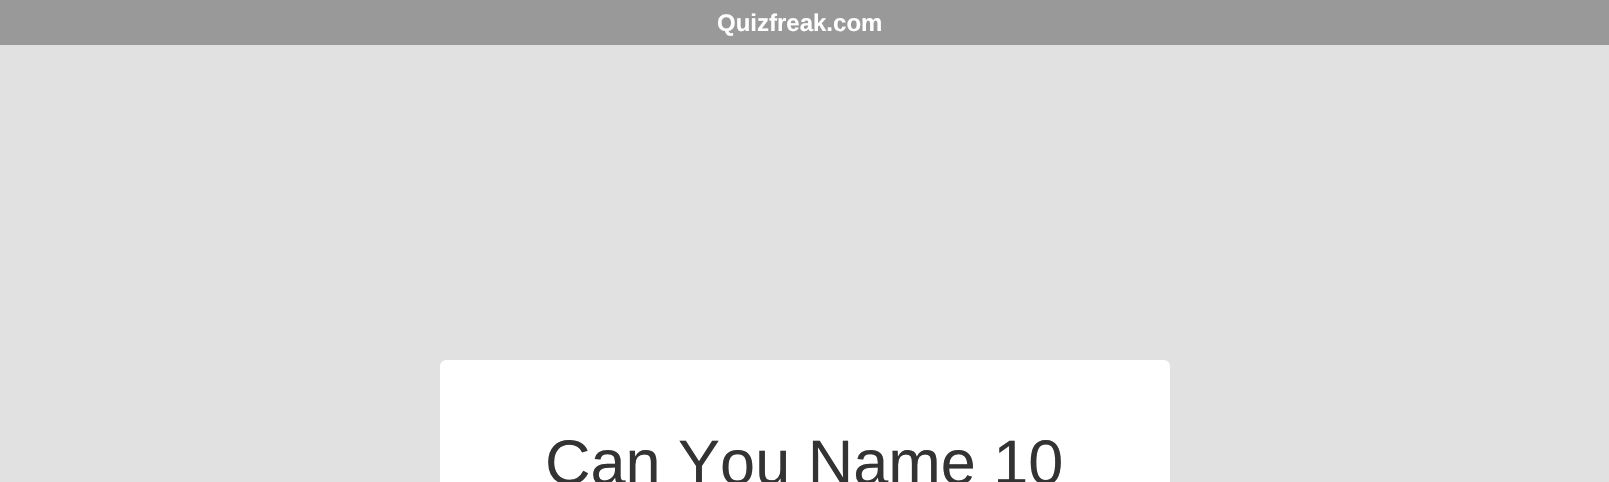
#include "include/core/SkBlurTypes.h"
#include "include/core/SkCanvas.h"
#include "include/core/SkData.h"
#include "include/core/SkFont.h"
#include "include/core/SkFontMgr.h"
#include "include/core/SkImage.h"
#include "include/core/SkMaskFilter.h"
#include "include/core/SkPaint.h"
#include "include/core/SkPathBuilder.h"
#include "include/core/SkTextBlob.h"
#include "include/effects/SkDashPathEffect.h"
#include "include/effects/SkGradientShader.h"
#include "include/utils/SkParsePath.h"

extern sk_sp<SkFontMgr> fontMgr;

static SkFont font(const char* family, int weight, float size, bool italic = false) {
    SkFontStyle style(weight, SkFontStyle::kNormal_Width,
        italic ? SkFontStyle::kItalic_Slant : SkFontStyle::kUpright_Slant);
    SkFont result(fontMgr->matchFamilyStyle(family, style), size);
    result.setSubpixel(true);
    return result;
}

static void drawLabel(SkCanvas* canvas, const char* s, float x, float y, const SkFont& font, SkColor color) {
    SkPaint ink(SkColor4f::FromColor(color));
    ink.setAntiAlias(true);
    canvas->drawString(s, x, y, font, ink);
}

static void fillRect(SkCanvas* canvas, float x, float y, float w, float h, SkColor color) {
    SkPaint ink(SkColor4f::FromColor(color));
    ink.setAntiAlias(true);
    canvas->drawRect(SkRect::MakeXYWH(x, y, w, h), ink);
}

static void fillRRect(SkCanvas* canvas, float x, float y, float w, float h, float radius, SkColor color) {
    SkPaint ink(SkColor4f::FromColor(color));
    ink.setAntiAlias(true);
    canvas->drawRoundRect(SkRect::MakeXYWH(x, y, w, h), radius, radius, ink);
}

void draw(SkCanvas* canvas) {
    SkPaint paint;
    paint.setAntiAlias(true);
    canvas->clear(0xFFE1E1E1);
    fillRect(canvas, 0, 0, 1609, 45, 0xFF999999);
    SkFont font1 = font("Liberation Sans", 700, 24);
    drawLabel(canvas, "Quizfreak.com", 717, 31, font1, 0xFFFFFFFF);
    fillRRect(canvas, 440, 360, 730, 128, 6, 0xFFFFFFFF);
    SkFont font2 = font("Liberation Sans", 400, 63);
    drawLabel(canvas, "Can You Name 10", 545, 484, font2, 0xFF333333);
}
